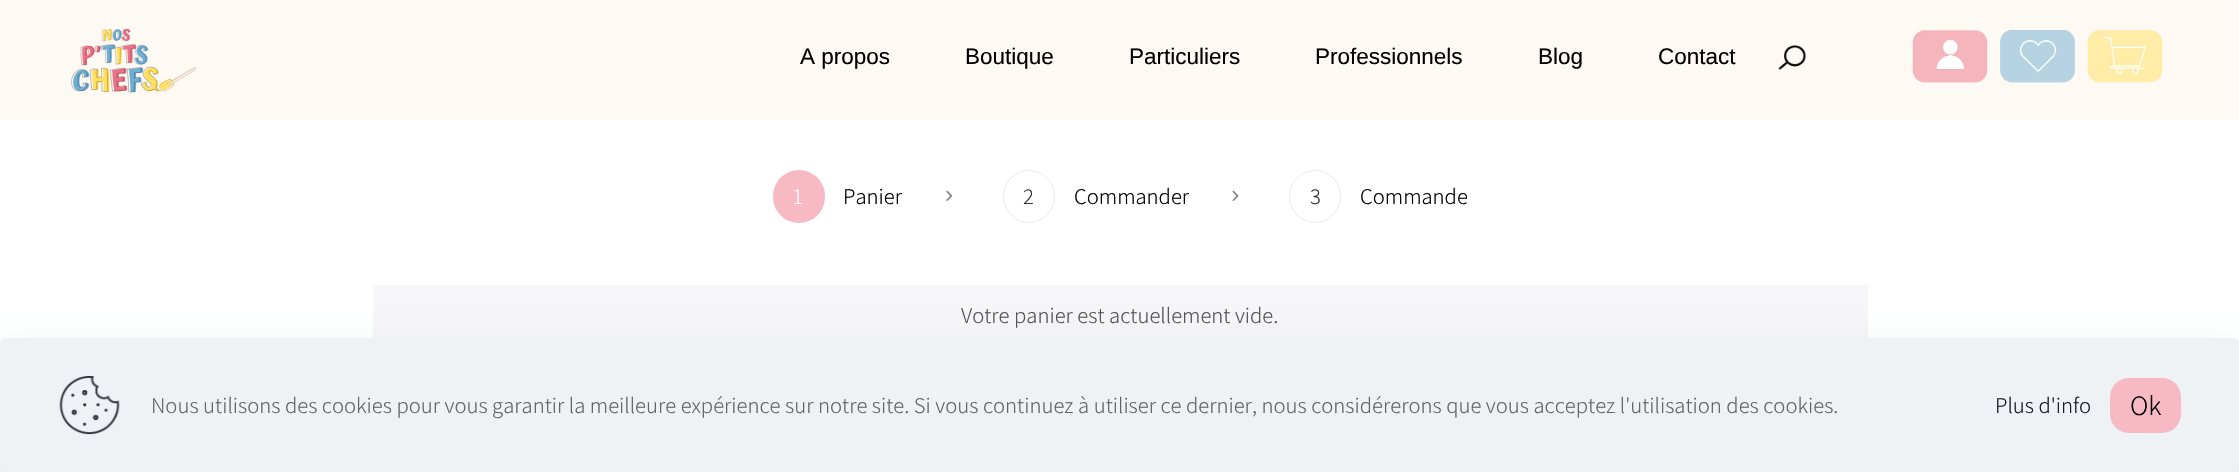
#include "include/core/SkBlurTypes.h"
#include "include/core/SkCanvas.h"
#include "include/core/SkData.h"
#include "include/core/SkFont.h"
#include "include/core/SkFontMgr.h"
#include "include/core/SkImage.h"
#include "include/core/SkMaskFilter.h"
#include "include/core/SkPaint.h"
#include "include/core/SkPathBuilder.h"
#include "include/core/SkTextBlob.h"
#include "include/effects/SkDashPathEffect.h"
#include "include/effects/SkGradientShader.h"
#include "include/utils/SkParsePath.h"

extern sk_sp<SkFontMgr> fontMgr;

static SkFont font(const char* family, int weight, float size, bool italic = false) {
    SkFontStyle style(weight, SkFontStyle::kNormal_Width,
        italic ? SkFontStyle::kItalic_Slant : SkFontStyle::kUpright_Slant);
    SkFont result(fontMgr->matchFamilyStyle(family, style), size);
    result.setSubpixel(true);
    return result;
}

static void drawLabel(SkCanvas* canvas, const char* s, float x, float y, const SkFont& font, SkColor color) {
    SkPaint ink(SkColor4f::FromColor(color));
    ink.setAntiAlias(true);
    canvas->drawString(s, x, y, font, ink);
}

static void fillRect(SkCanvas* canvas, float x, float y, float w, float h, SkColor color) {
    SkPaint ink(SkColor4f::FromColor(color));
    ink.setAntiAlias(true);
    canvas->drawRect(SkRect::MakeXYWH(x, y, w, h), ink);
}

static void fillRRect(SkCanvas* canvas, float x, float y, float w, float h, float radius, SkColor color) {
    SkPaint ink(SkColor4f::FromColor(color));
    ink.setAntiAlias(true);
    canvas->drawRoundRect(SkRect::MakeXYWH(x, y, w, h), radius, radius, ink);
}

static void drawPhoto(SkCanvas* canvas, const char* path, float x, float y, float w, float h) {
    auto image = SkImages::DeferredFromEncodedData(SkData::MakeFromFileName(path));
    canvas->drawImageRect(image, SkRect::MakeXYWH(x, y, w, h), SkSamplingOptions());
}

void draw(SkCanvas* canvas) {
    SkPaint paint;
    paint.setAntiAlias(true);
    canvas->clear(0xFFFFFFFF);
    fillRect(canvas, 0, 0, 2239, 120, 0xFFFEF9F3);
    drawPhoto(canvas, "assets/img1.png", 71, 29, 125, 64);
    SkFont font1 = font("Liberation Sans", 400, 22.5f);
    drawLabel(canvas, "A propos", 800, 64, font1, 0xFF000000);
    drawLabel(canvas, "Boutique", 965, 64, font1, 0xFF000000);
    drawLabel(canvas, "Particuliers", 1129, 64, font1, 0xFF000000);
    drawLabel(canvas, "Professionnels", 1315, 64, font1, 0xFF000000);
    drawLabel(canvas, "Blog", 1538, 64, font1, 0xFF000000);
    drawLabel(canvas, "Contact", 1658, 64, font1, 0xFF000000);
    drawPhoto(canvas, "assets/img2.png", 1778, 45, 29, 25);
    drawPhoto(canvas, "assets/img3.png", 1912, 30, 76, 53);
    drawPhoto(canvas, "assets/img4.png", 2000, 30, 75, 53);
    drawPhoto(canvas, "assets/img5.png", 2087, 30, 76, 53);
    fillRRect(canvas, 773, 170, 52, 53, 26, 0xFFF7B9C3);
    SkFont font2 = font("Assistant", 300, 22.5f);
    drawLabel(canvas, "1", 793, 204, font2, 0xFFFFFFFF);
    drawLabel(canvas, "Panier", 843, 204, font2, 0xFF000000);
    drawPhoto(canvas, "assets/img6.png", 946, 190, 7, 11);
    paint.setStroke(true);
    paint.setStrokeWidth(1);
    paint.setColor(0xFFEBEBEB);
    canvas->drawRoundRect(SkRect::MakeXYWH(1003.5f, 170.5f, 51, 52), 25.5f, 25.5f, paint);
    drawLabel(canvas, "2", 1023, 204, font2, 0xFF333333);
    drawLabel(canvas, "Commander", 1074, 204, font2, 0xFF000000);
    drawPhoto(canvas, "assets/img7.png", 1232, 190, 7, 11);
    canvas->drawRoundRect(SkRect::MakeXYWH(1289.5f, 170.5f, 51, 52), 25.5f, 25.5f, paint);
    drawLabel(canvas, "3", 1310, 204, font2, 0xFF333333);
    drawLabel(canvas, "Commande", 1360, 204, font2, 0xFF000000);
    fillRect(canvas, 373, 285, 1495, 53, 0xFFF6F5F8);
    drawLabel(canvas, "Votre panier est actuellement vide.", 961, 323, font2, 0xFF515151);
    fillRect(canvas, 0, 467, 2239, 5, 0xFFFDF8F2);
    paint.setStroke(false);
    paint.setColor(0x21010727);
    paint.setMaskFilter(SkMaskFilter::MakeBlur(kNormal_SkBlurStyle, 19));
    canvas->drawRoundRect(SkRect::MakeXYWH(0, 356, 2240, 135), 6, 6, paint);
    paint.setMaskFilter(nullptr);
    fillRRect(canvas, 0, 338, 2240, 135, 6, 0xFFEEF2F5);
    drawPhoto(canvas, "assets/img8.png", 59, 376, 61, 59);
    drawLabel(canvas, "Nous utilisons des cookies pour vous garantir la meilleure expérience sur notre site. Si vous continuez à utiliser ce dernier, nous considérerons que vous acceptez l'utilisation des cookies.", 151, 413, font2, 0xFF626262);
    drawLabel(canvas, "Plus d'info", 1995, 413, font2, 0xFF161922);
    fillRRect(canvas, 2110, 378, 71, 55, 19, 0xFFF7B9C3);
    SkFont font3 = font("Assistant", 300, 28);
    drawLabel(canvas, "Ok", 2130, 415, font3, 0xFF000000);
}
